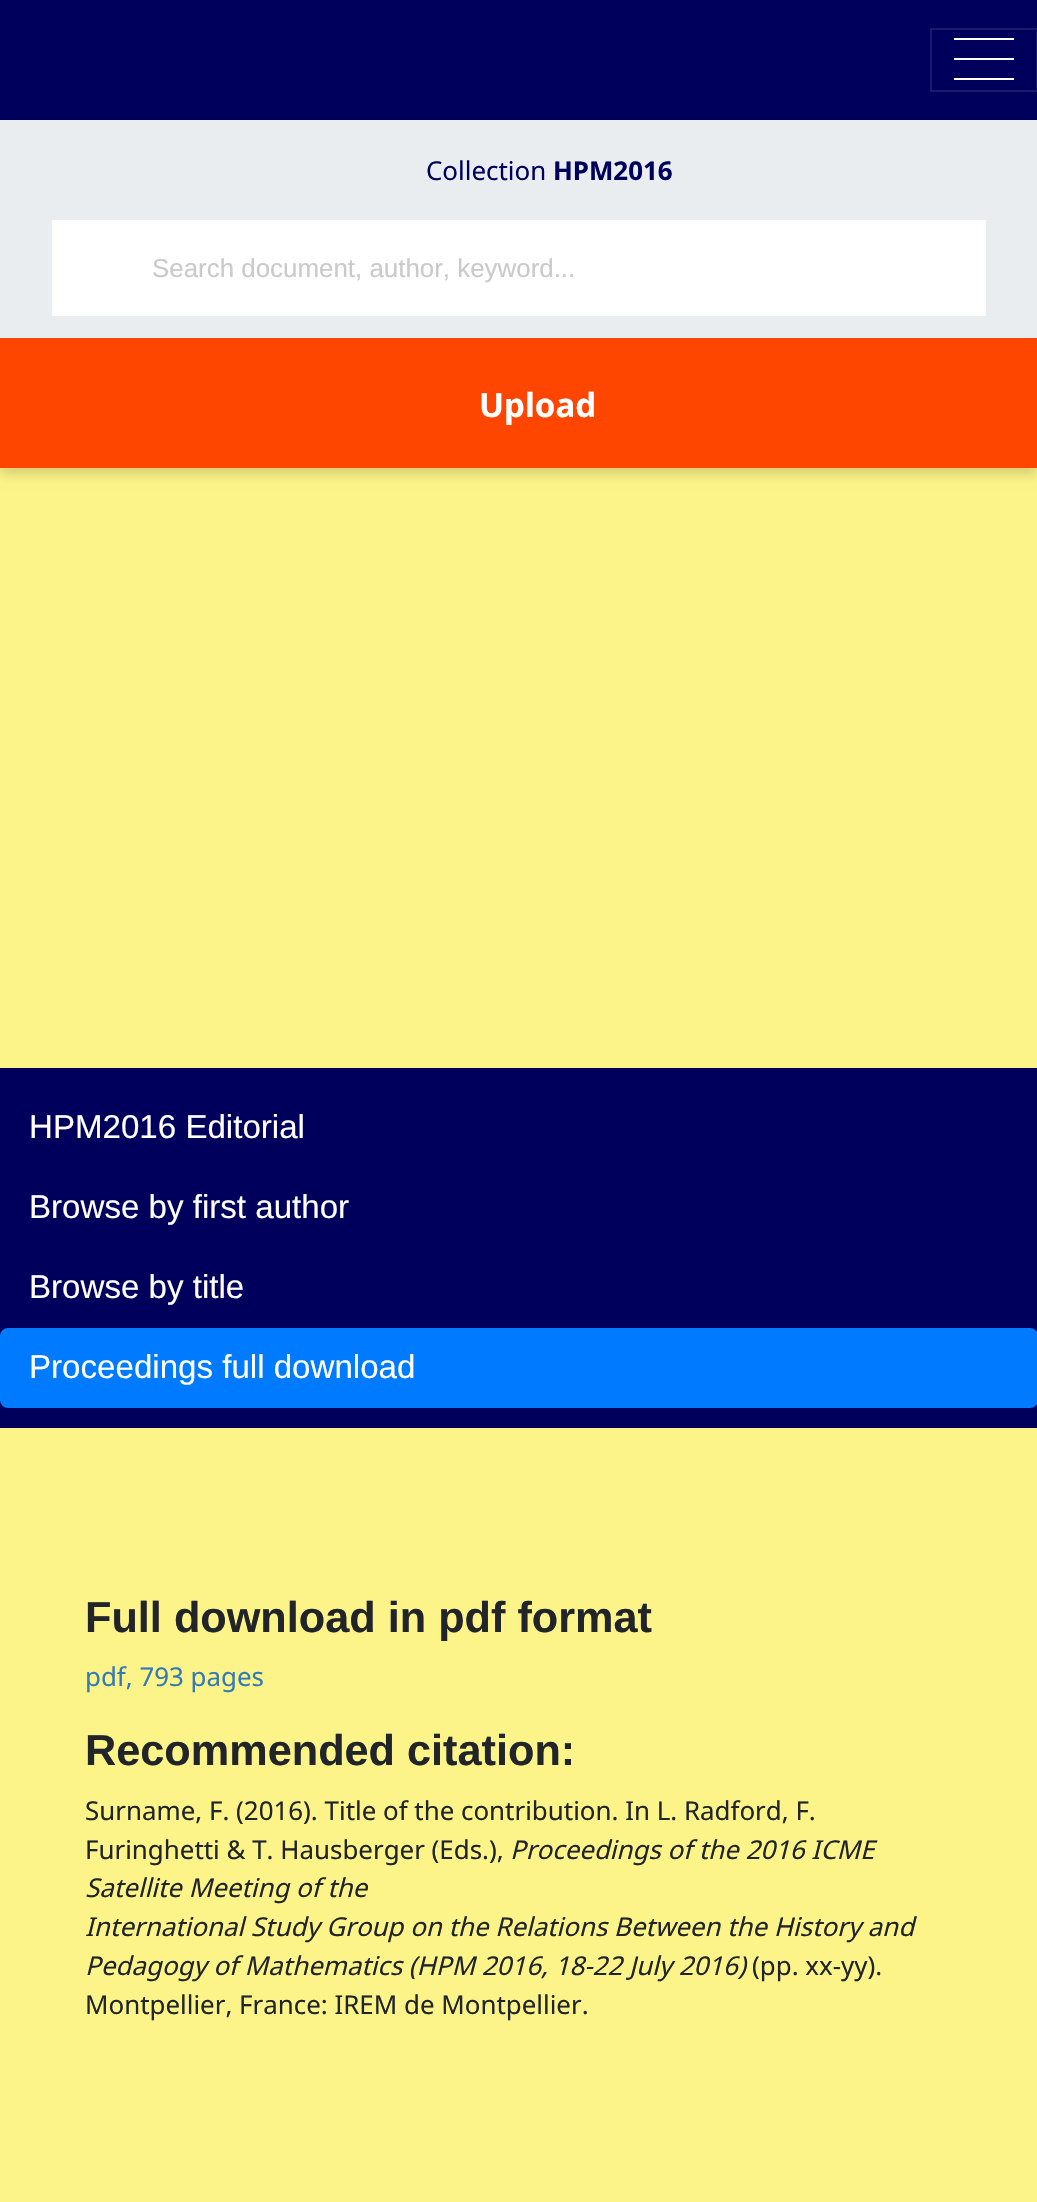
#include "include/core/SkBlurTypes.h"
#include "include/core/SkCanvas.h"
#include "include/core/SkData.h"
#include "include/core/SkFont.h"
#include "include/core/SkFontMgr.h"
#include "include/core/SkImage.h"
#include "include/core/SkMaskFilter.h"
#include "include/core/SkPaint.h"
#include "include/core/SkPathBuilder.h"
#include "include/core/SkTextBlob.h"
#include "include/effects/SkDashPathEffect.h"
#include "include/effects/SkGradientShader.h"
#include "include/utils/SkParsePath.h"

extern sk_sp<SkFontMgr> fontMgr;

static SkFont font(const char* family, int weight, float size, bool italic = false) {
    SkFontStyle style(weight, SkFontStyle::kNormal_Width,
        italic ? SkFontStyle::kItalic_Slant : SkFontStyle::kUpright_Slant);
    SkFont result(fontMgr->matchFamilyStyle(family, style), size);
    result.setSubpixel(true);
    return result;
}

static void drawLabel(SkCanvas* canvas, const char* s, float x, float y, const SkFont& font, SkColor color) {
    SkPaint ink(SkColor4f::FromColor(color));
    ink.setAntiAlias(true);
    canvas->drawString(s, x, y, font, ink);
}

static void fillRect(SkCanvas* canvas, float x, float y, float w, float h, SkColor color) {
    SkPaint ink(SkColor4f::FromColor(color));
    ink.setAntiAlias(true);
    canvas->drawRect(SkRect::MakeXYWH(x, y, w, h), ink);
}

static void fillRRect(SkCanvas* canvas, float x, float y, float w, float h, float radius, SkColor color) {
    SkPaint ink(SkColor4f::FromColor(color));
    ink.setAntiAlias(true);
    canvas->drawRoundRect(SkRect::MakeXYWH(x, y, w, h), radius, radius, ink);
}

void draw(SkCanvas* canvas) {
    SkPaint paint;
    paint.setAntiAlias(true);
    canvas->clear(0xFFFDF489);
    fillRect(canvas, 0, 0, 1037, 120, 0xFF00005C);
    paint.setStroke(true);
    paint.setStrokeWidth(2);
    paint.setColor(0xFF1A1A6C);
    canvas->drawRect(SkRect::MakeXYWH(931, 29, 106, 62), paint);
    fillRect(canvas, 954, 38, 60, 2, 0xFFFFFFFF);
    fillRect(canvas, 954, 58, 60, 2, 0xFFFFFFFF);
    fillRect(canvas, 954, 78, 60, 2, 0xFFFFFFFF);
    paint.setStroke(false);
    paint.setColor(0x29000000);
    paint.setMaskFilter(SkMaskFilter::MakeBlur(kNormal_SkBlurStyle, 6));
    canvas->drawRect(SkRect::MakeXYWH(0, 126, 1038, 348), paint);
    paint.setMaskFilter(nullptr);
    fillRect(canvas, 0, 120, 1037, 218, 0xFFE9EDF0);
    SkFont font1 = font("Noto Sans", 400, 25.9f);
    drawLabel(canvas, "Collection", 426, 180, font1, 0xFF00005C);
    SkFont font2 = font("Noto Sans", 700, 25.9f);
    drawLabel(canvas, "HPM2016", 553, 180, font2, 0xFF00005C);
    fillRect(canvas, 52, 220, 934, 96, 0xFFFFFFFF);
    SkFont font3 = font("Liberation Sans", 400, 25.9f);
    drawLabel(canvas, "Search document, author, keyword...", 152, 277, font3, 0xFFCACACA);
    fillRect(canvas, 0, 338, 1037, 130, 0xFFFF4600);
    SkFont font4 = font("Noto Sans", 700, 33.1f);
    drawLabel(canvas, "Upload", 479, 417, font4, 0xFFFFFFFF);
    fillRect(canvas, 0, 1068, 1037, 360, 0xFF00005C);
    SkFont font5 = font("Liberation Sans", 400, 33.1f);
    drawLabel(canvas, "HPM2016 Editorial", 29, 1138, font5, 0xFFFFFFFF);
    drawLabel(canvas, "Browse by first author", 29, 1218, font5, 0xFFFFFFFF);
    drawLabel(canvas, "Browse by title", 29, 1298, font5, 0xFFFFFFFF);
    fillRRect(canvas, 0, 1328, 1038, 80, 8, 0xFF007BFF);
    drawLabel(canvas, "Proceedings full download", 29, 1378, font5, 0xFFFFFFFF);
    SkFont font6 = font("Liberation Sans", 700, 43.25f);
    drawLabel(canvas, "Full download in pdf format", 85, 1632, font6, 0xFF212529);
    drawLabel(canvas, "pdf, 793 pages", 85, 1686, font1, 0xFF337AB7);
    drawLabel(canvas, "Recommended citation:", 85, 1765, font6, 0xFF212529);
    drawLabel(canvas, "Surname, F. (2016). Title of the contribution. In L. Radford, F.", 85, 1820, font1, 0xFF212529);
    drawLabel(canvas, "Furinghetti & T. Hausberger (Eds.),", 85, 1859, font1, 0xFF212529);
    SkFont font7 = font("Noto Sans", 400, 25.9f, true);
    drawLabel(canvas, "Proceedings of the 2016 ICME", 510, 1859, font7, 0xFF212529);
    drawLabel(canvas, "Satellite Meeting of the", 85, 1897, font7, 0xFF212529);
    drawLabel(canvas, "International Study Group on the Relations Between the History and", 85, 1936, font7, 0xFF212529);
    drawLabel(canvas, "Pedagogy of Mathematics (HPM 2016, 18-22 July 2016)", 85, 1975, font7, 0xFF212529);
    drawLabel(canvas, "(pp. xx-yy).", 752, 1975, font1, 0xFF212529);
    drawLabel(canvas, "Montpellier, France: IREM de Montpellier.", 85, 2014, font1, 0xFF212529);
}
